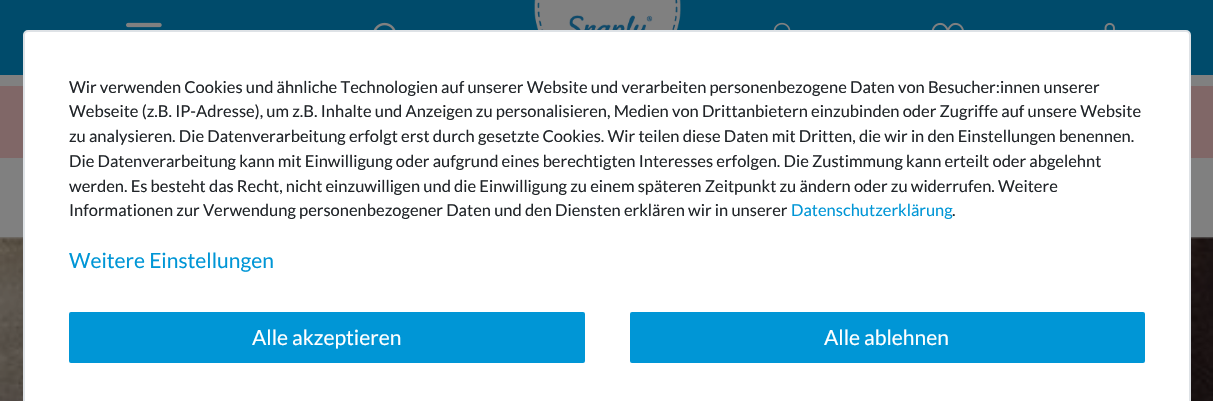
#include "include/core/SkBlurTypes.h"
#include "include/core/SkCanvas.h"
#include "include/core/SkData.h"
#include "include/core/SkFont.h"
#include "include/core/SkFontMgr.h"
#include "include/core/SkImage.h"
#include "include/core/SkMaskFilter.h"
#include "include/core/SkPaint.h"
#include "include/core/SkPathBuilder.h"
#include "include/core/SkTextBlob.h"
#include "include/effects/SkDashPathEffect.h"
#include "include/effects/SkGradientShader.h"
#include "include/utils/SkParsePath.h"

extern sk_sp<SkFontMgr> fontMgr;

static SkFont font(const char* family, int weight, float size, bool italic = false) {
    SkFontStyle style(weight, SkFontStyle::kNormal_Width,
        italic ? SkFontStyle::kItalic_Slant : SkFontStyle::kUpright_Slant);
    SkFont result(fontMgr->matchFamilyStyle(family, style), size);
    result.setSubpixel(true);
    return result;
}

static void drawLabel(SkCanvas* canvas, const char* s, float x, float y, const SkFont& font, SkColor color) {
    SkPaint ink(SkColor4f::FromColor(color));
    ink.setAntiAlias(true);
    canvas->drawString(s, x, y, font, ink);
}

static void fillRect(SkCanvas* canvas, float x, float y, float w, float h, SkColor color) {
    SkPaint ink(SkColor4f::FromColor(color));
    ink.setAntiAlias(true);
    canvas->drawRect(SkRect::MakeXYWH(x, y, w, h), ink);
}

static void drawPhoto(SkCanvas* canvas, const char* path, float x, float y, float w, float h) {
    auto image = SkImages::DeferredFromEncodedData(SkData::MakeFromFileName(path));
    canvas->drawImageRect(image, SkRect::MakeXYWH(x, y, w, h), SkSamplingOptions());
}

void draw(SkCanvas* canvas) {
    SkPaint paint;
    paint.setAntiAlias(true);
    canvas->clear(0xFF808080);
    fillRect(canvas, 0, 0, 1213, 75, 0xFF004B6B);
    drawPhoto(canvas, "assets/img1.png", 534, 0, 147, 30);
    drawPhoto(canvas, "assets/img2.png", 126, 22, 36, 6);
    drawPhoto(canvas, "assets/img3.png", 373, 22, 23, 8);
    drawPhoto(canvas, "assets/img4.png", 773, 22, 18, 8);
    drawPhoto(canvas, "assets/img5.png", 931, 22, 33, 8);
    drawPhoto(canvas, "assets/img6.png", 1101, 22, 17, 8);
    fillRect(canvas, 0, 86, 1213, 72, 0xFF806767);
    drawPhoto(canvas, "assets/img7.png", 0, 237, 1213, 164);
    paint.setColor(0xFFFFFFFF);
    canvas->drawRoundRect(SkRect::MakeXYWH(24, 31, 1166, 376), 4, 4, paint);
    paint.setStroke(true);
    paint.setStrokeWidth(2);
    paint.setColor(0xFFDEE2E6);
    canvas->drawRoundRect(SkRect::MakeXYWH(24, 31, 1166, 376), 4, 4, paint);
    SkFont font1 = font("Lato", 400, 16.5f);
    drawLabel(canvas, "Wir verwenden Cookies und ähnliche Technologien auf unserer Website und verarbeiten personenbezogene Daten von Besucher:innen unserer", 69, 93, font1, 0xFF212529);
    drawLabel(canvas, "Webseite (z.B. IP-Adresse), um z.B. Inhalte und Anzeigen zu personalisieren, Medien von Drittanbietern einzubinden oder Zugriffe auf unsere Website", 69, 117, font1, 0xFF212529);
    drawLabel(canvas, "zu analysieren. Die Datenverarbeitung erfolgt erst durch gesetzte Cookies. Wir teilen diese Daten mit Dritten, die wir in den Einstellungen benennen.", 69, 142, font1, 0xFF212529);
    drawLabel(canvas, "Die Datenverarbeitung kann mit Einwilligung oder aufgrund eines berechtigten Interesses erfolgen. Die Zustimmung kann erteilt oder abgelehnt", 69, 167, font1, 0xFF212529);
    drawLabel(canvas, "werden. Es besteht das Recht, nicht einzuwilligen und die Einwilligung zu einem späteren Zeitpunkt zu ändern oder zu widerrufen. Weitere", 69, 192, font1, 0xFF212529);
    drawLabel(canvas, "Informationen zur Verwendung personenbezogener Daten und den Diensten erklären wir in unserer", 69, 216, font1, 0xFF212529);
    drawLabel(canvas, "Datenschutzerklärung", 791, 216, font1, 0xFF0096D6);
    drawLabel(canvas, ".", 952, 216, font1, 0xFF212529);
    SkFont font2 = font("Lato", 400, 21);
    drawLabel(canvas, "Weitere Einstellungen", 69, 268, font2, 0xFF0096D6);
    paint.setStroke(false);
    paint.setColor(0xFF0096D6);
    canvas->drawRoundRect(SkRect::MakeXYWH(70, 313, 514, 49), 1, 1, paint);
    paint.setStroke(true);
    canvas->drawRoundRect(SkRect::MakeXYWH(70, 313, 514, 49), 1, 1, paint);
    drawLabel(canvas, "Alle akzeptieren", 252, 345, font2, 0xFFFFFFFF);
    paint.setStroke(false);
    canvas->drawRoundRect(SkRect::MakeXYWH(631, 313, 513, 49), 1, 1, paint);
    paint.setStroke(true);
    canvas->drawRoundRect(SkRect::MakeXYWH(631, 313, 513, 49), 1, 1, paint);
    drawLabel(canvas, "Alle ablehnen", 824, 345, font2, 0xFFFFFFFF);
}
